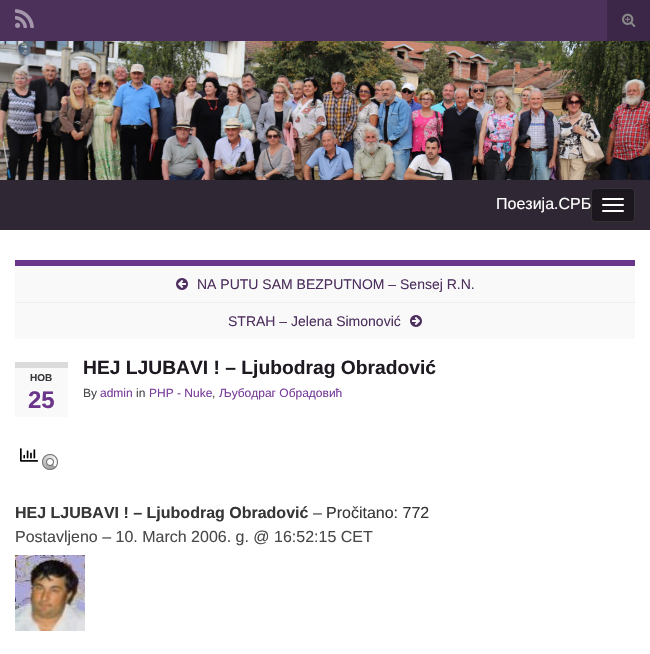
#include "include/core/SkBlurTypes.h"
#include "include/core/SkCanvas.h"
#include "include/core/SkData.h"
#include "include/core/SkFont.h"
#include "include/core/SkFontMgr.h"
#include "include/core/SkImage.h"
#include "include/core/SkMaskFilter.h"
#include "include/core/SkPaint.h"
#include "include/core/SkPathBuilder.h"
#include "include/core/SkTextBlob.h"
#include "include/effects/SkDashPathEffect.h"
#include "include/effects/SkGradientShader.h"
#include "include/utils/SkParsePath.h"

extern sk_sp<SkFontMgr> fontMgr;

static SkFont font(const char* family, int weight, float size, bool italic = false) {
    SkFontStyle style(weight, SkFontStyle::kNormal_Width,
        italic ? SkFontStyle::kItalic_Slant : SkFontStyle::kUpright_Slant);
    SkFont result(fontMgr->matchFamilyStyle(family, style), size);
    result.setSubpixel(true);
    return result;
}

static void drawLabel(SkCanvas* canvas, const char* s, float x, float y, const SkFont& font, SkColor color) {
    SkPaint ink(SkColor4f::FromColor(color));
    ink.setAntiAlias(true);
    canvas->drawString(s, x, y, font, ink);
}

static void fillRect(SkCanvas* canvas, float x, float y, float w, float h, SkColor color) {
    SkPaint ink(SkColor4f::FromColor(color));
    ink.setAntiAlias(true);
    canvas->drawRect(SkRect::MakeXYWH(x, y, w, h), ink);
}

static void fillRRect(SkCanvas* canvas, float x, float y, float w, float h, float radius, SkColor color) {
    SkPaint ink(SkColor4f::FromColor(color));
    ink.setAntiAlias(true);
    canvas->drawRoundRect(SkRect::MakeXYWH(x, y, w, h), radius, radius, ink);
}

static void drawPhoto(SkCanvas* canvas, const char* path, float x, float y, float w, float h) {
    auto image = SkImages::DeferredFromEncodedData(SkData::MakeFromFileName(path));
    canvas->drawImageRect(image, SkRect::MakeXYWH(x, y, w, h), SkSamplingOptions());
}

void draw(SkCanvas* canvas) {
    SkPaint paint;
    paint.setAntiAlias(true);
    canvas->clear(0xFFFFFFFF);
    fillRect(canvas, 0, 0, 607, 41, 0xFF4C315A);
    drawPhoto(canvas, "assets/img1.png", 15, 9, 19, 19);
    fillRect(canvas, 607, 0, 43, 41, 0xFF3D2748);
    drawPhoto(canvas, "assets/img2.png", 622, 13, 14, 14);
    drawPhoto(canvas, "assets/img3.png", 0, 41, 650, 139);
    fillRect(canvas, 0, 180, 650, 50, 0xFF2F2733);
    SkFont font1 = font("Liberation Sans", 400, 16);
    drawLabel(canvas, "Поезија.СРБ", 496, 209, font1, 0xFFFFFFFF);
    paint.setColor(0xFF1C171F);
    canvas->drawRoundRect(SkRect::MakeXYWH(591.5f, 188.5f, 43, 33), 3.5f, 3.5f, paint);
    paint.setStroke(true);
    paint.setStrokeWidth(1);
    paint.setColor(0xFF333333);
    canvas->drawRoundRect(SkRect::MakeXYWH(591.5f, 188.5f, 43, 33), 3.5f, 3.5f, paint);
    fillRRect(canvas, 602, 198, 22, 2, 1, 0xFFFFFFFF);
    fillRRect(canvas, 602, 204, 22, 2, 1, 0xFFFFFFFF);
    fillRRect(canvas, 602, 210, 22, 2, 1, 0xFFFFFFFF);
    fillRect(canvas, 15, 266, 620, 73, 0xFFF9F9F9);
    fillRect(canvas, 15, 260, 620, 6, 0xFF6B3589);
    drawPhoto(canvas, "assets/img4.png", 176, 278, 12, 12);
    SkFont font2 = font("Liberation Sans", 400, 14);
    drawLabel(canvas, "NA PUTU SAM BEZPUTNOM – Sensej R.N.", 197, 289, font2, 0xFF4E305E);
    fillRect(canvas, 15, 302, 620, 1, 0xFFEEEEEE);
    drawLabel(canvas, "STRAH – Jelena Simonović", 228, 326, font2, 0xFF4E305E);
    drawPhoto(canvas, "assets/img5.png", 410, 315, 12, 12);
    SkFont font3 = font("Liberation Sans", 700, 19.25f);
    drawLabel(canvas, "HEJ LJUBAVI ! – Ljubodrag Obradović", 83, 374, font3, 0xFF1F1A22);
    fillRect(canvas, 15, 368, 53, 49, 0xFFF9F9F9);
    fillRect(canvas, 15, 362, 53, 6, 0xFFDBDBDB);
    SkFont font4 = font("Liberation Sans", 700, 10);
    drawLabel(canvas, "НОВ", 30, 381, font4, 0xFF3B383D);
    SkFont font5 = font("Liberation Sans", 700, 24);
    drawLabel(canvas, "25", 28, 408, font5, 0xFF6B3589);
    SkFont font6 = font("Liberation Sans", 400, 12);
    drawLabel(canvas, "By", 83, 397, font6, 0xFF4A474B);
    drawLabel(canvas, "admin", 100, 397, font6, 0xFF783D98);
    drawLabel(canvas, "in", 136, 397, font6, 0xFF4A474B);
    drawLabel(canvas, "PHP - Nuke", 149, 397, font6, 0xFF783D98);
    drawLabel(canvas, ",", 212, 397, font6, 0xFF4A474B);
    drawLabel(canvas, "Љубодраг Обрадовић", 219, 397, font6, 0xFF783D98);
    drawPhoto(canvas, "assets/img6.png", 20, 448, 18, 14);
    drawPhoto(canvas, "assets/img7.png", 42, 454, 16, 16);
    SkFont font7 = font("Liberation Sans", 700, 16);
    drawLabel(canvas, "HEJ LJUBAVI ! – Ljubodrag Obradović", 15, 518, font7, 0xFF363636);
    drawLabel(canvas, "–", 313, 518, font1, 0xFF4A474B);
    drawLabel(canvas, "Pročitano: 772", 326, 518, font1, 0xFF363636);
    drawLabel(canvas, "Postavljeno – 10. March 2006. g. @ 16:52:15 CET", 15, 542, font1, 0xFF4A474B);
    drawPhoto(canvas, "assets/img8.png", 15, 555, 70, 76);
}
